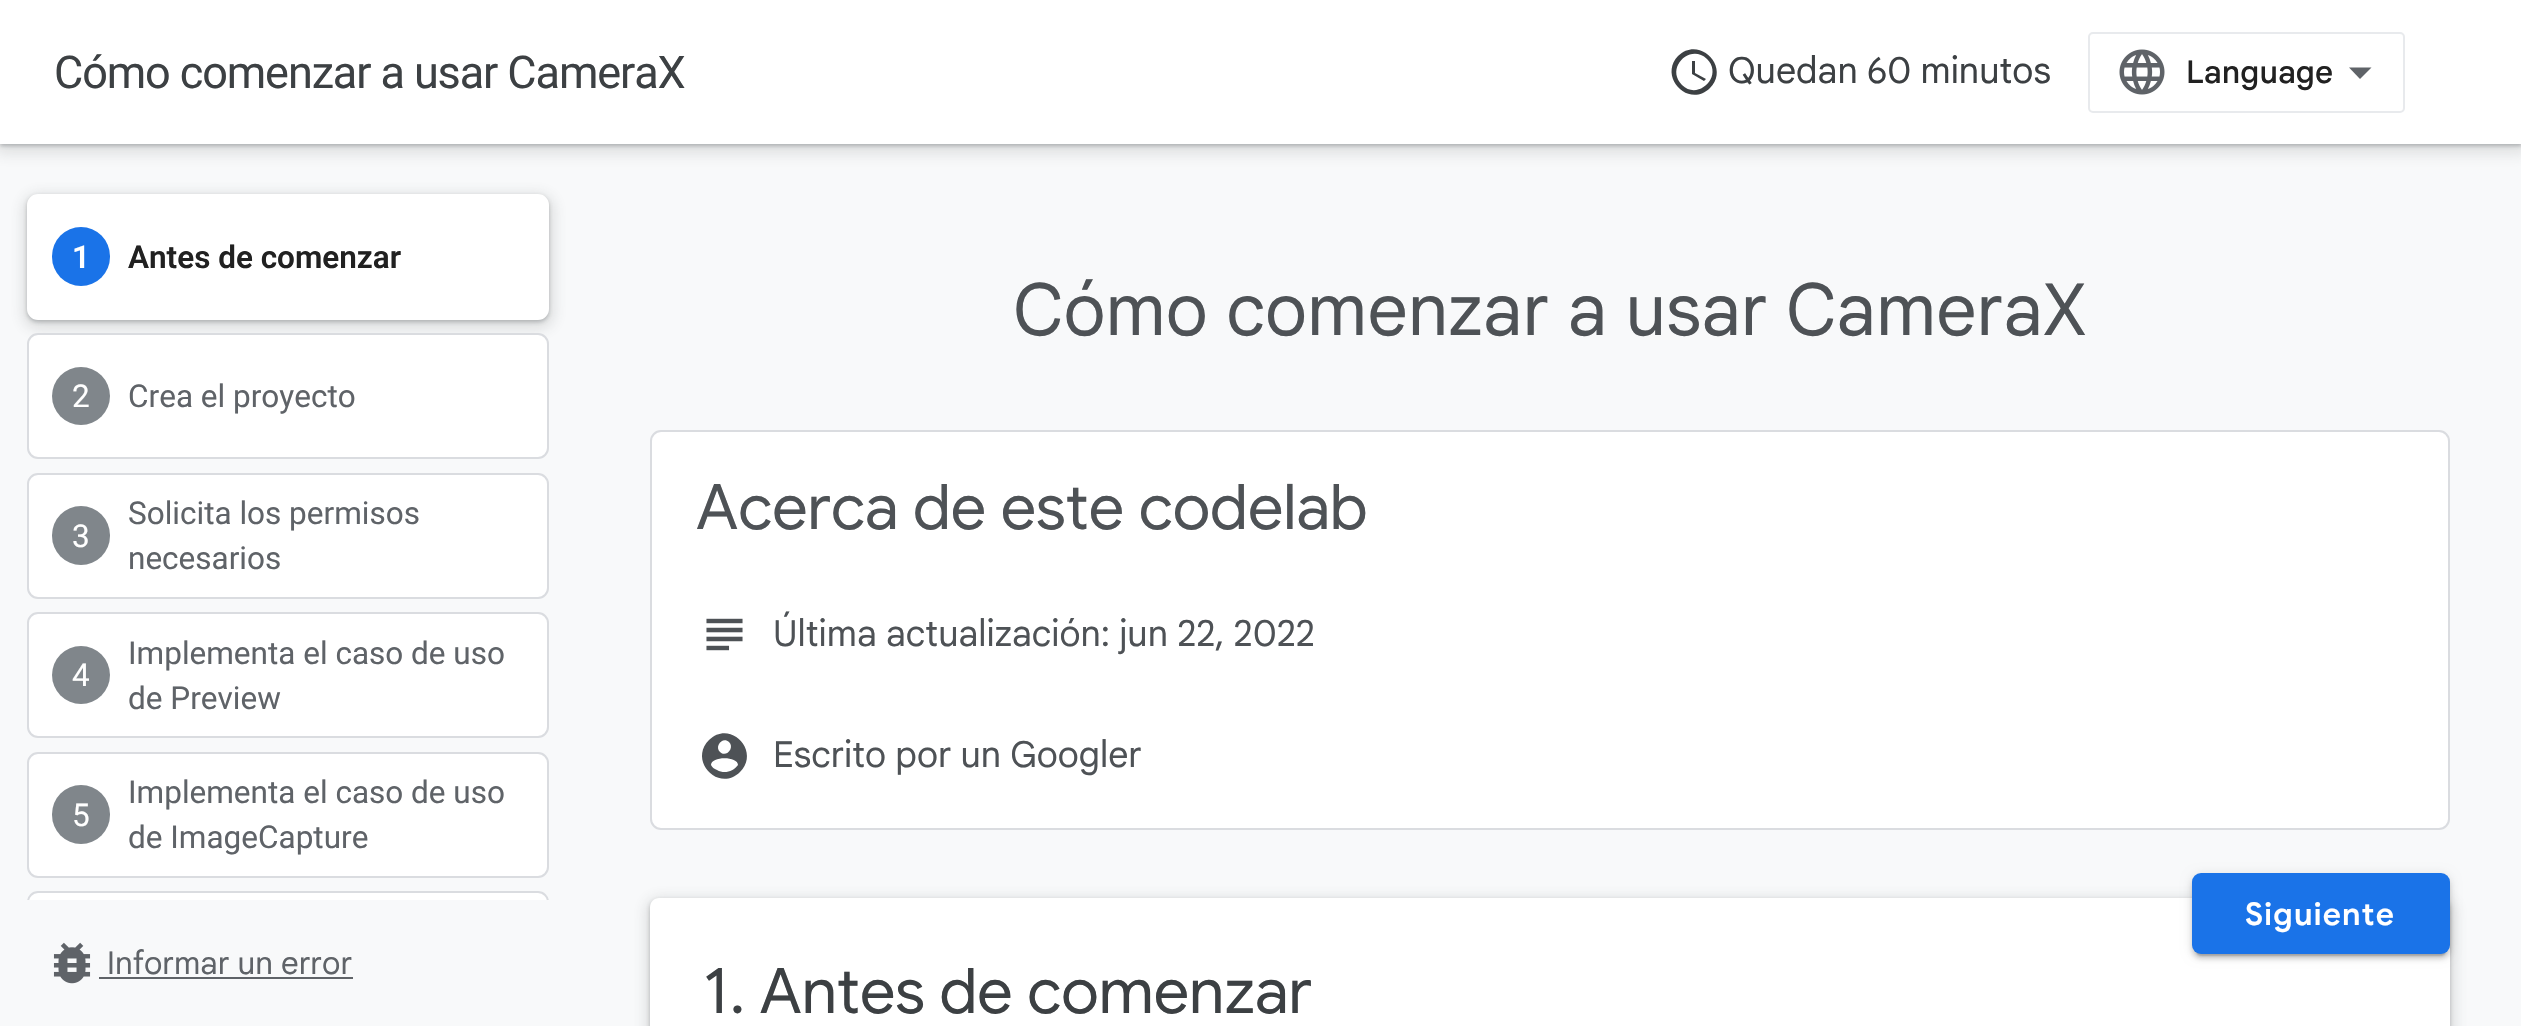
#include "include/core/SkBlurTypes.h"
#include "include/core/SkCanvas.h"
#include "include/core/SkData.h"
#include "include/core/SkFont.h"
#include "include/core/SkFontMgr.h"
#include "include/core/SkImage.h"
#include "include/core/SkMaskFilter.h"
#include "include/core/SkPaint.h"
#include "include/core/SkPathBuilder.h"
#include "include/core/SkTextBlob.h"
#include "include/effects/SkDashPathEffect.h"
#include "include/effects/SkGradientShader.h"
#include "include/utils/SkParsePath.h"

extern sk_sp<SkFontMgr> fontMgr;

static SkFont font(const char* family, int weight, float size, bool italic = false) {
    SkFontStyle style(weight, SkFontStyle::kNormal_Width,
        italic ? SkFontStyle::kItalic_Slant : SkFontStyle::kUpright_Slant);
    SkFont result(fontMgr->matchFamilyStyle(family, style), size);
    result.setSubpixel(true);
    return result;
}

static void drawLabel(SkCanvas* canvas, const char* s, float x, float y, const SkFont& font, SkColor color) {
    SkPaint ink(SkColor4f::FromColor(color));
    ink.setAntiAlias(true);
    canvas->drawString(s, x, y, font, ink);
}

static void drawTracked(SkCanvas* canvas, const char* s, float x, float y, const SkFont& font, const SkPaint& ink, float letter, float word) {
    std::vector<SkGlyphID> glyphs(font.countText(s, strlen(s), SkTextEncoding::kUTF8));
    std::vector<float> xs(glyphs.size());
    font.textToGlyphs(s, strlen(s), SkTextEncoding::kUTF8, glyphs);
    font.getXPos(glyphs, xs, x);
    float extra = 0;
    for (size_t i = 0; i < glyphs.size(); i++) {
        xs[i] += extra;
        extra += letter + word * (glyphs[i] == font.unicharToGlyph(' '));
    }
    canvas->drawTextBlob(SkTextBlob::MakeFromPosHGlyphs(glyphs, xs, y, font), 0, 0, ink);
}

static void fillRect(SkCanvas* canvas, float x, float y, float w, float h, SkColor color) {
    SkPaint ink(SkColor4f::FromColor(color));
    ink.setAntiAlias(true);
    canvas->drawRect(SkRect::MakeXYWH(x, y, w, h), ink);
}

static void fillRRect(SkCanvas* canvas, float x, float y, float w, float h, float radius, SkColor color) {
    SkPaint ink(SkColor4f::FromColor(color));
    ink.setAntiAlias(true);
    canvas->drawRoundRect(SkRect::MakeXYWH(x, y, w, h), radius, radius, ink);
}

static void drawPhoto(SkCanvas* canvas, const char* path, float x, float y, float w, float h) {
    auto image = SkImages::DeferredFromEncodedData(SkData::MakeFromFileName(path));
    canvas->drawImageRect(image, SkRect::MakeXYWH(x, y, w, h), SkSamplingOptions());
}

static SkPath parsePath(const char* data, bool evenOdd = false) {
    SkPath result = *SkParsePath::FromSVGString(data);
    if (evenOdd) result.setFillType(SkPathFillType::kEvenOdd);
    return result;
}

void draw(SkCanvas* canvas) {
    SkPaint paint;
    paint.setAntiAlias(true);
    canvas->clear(0xFFF8F9FA);
    paint.setColor(0x263C4043);
    paint.setMaskFilter(SkMaskFilter::MakeBlur(kNormal_SkBlurStyle, 7));
    canvas->drawRect(SkRect::MakeXYWH(-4, 0, 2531, 153), paint);
    paint.setMaskFilter(nullptr);
    paint.setColor(0x4D3C4043);
    paint.setMaskFilter(SkMaskFilter::MakeBlur(kNormal_SkBlurStyle, 2));
    canvas->drawRect(SkRect::MakeXYWH(0, 2, 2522, 144), paint);
    paint.setMaskFilter(nullptr);
    fillRect(canvas, 0, 0, 2521, 144, 0xFFFFFFFF);
    SkFont font1 = font("Roboto", 400, 45);
    paint.setColor(0xFF3C4043);
    drawTracked(canvas, "Cómo comenzar a usar CameraX", 54, 88, font1, paint, -1.1f, 0);
    canvas->drawPath(parsePath("M1695 61V73L1706 79L1704 81L1692 74V61ZM1682 85C1698 101 1724 76 1707 59C1690 43 1665 68 1682 85ZM1678 56C1699 35 1731 67 1710 88C1689 109 1658 77 1678 56Z"), paint);
    SkFont font2 = font("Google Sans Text", 400, 36);
    drawLabel(canvas, "Quedan 60 minutos", 1728, 83, font2, 0xFF3C4043);
    paint.setStroke(true);
    paint.setStrokeWidth(2);
    paint.setColor(0xFFE8EAED);
    canvas->drawRoundRect(SkRect::MakeXYWH(2089, 33, 315, 79), 4, 4, paint);
    drawPhoto(canvas, "assets/img1.png", 2119, 49, 46, 46);
    SkFont font3 = font("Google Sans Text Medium", 500, 31.5f);
    drawLabel(canvas, "Language", 2186, 83, font3, 0xFF212121);
    paint.setStroke(false);
    paint.setColor(0xFF5F6368);
    canvas->drawPath(parsePath("M2360 79L2349 67.5H2371.5Z"), paint);
    paint.setColor(0x263C4043);
    paint.setMaskFilter(SkMaskFilter::MakeBlur(kNormal_SkBlurStyle, 7));
    canvas->drawRoundRect(SkRect::MakeXYWH(23, 194, 531, 135), 16, 16, paint);
    paint.setMaskFilter(nullptr);
    paint.setColor(0x4D3C4043);
    paint.setMaskFilter(SkMaskFilter::MakeBlur(kNormal_SkBlurStyle, 2));
    canvas->drawRoundRect(SkRect::MakeXYWH(27, 196, 522, 126), 11, 11, paint);
    paint.setMaskFilter(nullptr);
    paint.setColor(0xFFFFFFFF);
    canvas->drawRoundRect(SkRect::MakeXYWH(28, 195, 520, 124), 10, 10, paint);
    paint.setStroke(true);
    canvas->drawRoundRect(SkRect::MakeXYWH(28, 195, 520, 124), 10, 10, paint);
    fillRRect(canvas, 52, 227, 58, 59, 29, 0xFF1A73E8);
    SkFont font4 = font("Roboto", 600, 31.5f);
    drawLabel(canvas, "1", 72, 268, font4, 0xFFFFFFFF);
    drawLabel(canvas, "Antes de comenzar", 128, 268, font4, 0xFF212121);
    paint.setStroke(false);
    canvas->drawRoundRect(SkRect::MakeXYWH(28, 334, 520, 124), 10, 10, paint);
    paint.setStroke(true);
    paint.setColor(0xFFDADCE0);
    canvas->drawRoundRect(SkRect::MakeXYWH(28, 334, 520, 124), 10, 10, paint);
    paint.setStroke(false);
    paint.setColor(0xFF80868B);
    canvas->drawCircle(81, 396, 29, paint);
    SkFont font5 = font("Roboto", 400, 31.5f);
    drawLabel(canvas, "2", 72, 407, font5, 0xFFFFFFFF);
    drawLabel(canvas, "Crea el proyecto", 128, 407, font5, 0xFF5F6368);
    paint.setColor(0xFFFFFFFF);
    canvas->drawRoundRect(SkRect::MakeXYWH(28, 474, 520, 124), 10, 10, paint);
    paint.setStroke(true);
    paint.setColor(0xFFDADCE0);
    canvas->drawRoundRect(SkRect::MakeXYWH(28, 474, 520, 124), 10, 10, paint);
    fillRRect(canvas, 52, 506, 58, 59, 29, 0xFF80868B);
    drawLabel(canvas, "3", 72, 547, font5, 0xFFFFFFFF);
    drawLabel(canvas, "Solicita los permisos", 128, 524, font5, 0xFF5F6368);
    drawLabel(canvas, "necesarios", 128, 569, font5, 0xFF5F6368);
    paint.setStroke(false);
    paint.setColor(0xFFFFFFFF);
    canvas->drawRoundRect(SkRect::MakeXYWH(28, 613, 520, 124), 10, 10, paint);
    paint.setStroke(true);
    paint.setColor(0xFFDADCE0);
    canvas->drawRoundRect(SkRect::MakeXYWH(28, 613, 520, 124), 10, 10, paint);
    paint.setStroke(false);
    paint.setColor(0xFF80868B);
    canvas->drawCircle(81, 675, 29, paint);
    drawLabel(canvas, "4", 72, 686, font5, 0xFFFFFFFF);
    drawLabel(canvas, "Implementa el caso de uso", 128, 664, font5, 0xFF5F6368);
    drawLabel(canvas, "de Preview", 128, 709, font5, 0xFF5F6368);
    paint.setColor(0xFFFFFFFF);
    canvas->drawRoundRect(SkRect::MakeXYWH(28, 753, 520, 124), 10, 10, paint);
    paint.setStroke(true);
    paint.setColor(0xFFDADCE0);
    canvas->drawRoundRect(SkRect::MakeXYWH(28, 753, 520, 124), 10, 10, paint);
    fillRRect(canvas, 52, 785, 58, 59, 29, 0xFF80868B);
    drawLabel(canvas, "5", 72, 826, font5, 0xFFFFFFFF);
    drawLabel(canvas, "Implementa el caso de uso", 128, 803, font5, 0xFF5F6368);
    drawLabel(canvas, "de ImageCapture", 128, 848, font5, 0xFF5F6368);
    paint.setStroke(false);
    paint.setColor(0xFFFFFFFF);
    canvas->drawPath(parsePath("M38 891H538C544 891 549 896 549 902V900H27V902C27 896 32 891 38 891Z"), paint);
    drawPhoto(canvas, "assets/img3.png", 53, 942, 38, 42);
    fillRect(canvas, 99, 977, 254, 2, 0xFF5F6368);
    canvas->save();
    canvas->clipRect(SkRect::MakeXYWH(0, 144, 576, 756));
    paint.setStroke(true);
    paint.setColor(0xFFDADCE0);
    canvas->drawRoundRect(SkRect::MakeXYWH(28, 892, 520, 124), 10, 10, paint);
    canvas->restore();
    SkFont font6 = font("Google Sans Text", 400, 72);
    drawLabel(canvas, "Cómo comenzar a usar CameraX", 1013, 335, font6, 0xFF4E5256);
    paint.setStroke(false);
    paint.setColor(0xFFFFFFFF);
    canvas->drawRoundRect(SkRect::MakeXYWH(651, 431, 1798, 398), 10, 10, paint);
    paint.setStroke(true);
    paint.setColor(0xFFDADCE0);
    canvas->drawRoundRect(SkRect::MakeXYWH(651, 431, 1798, 398), 10, 10, paint);
    SkFont font7 = font("Google Sans", 400, 63);
    drawLabel(canvas, "Acerca de este codelab", 696, 529, font7, 0xFF4E5256);
    drawPhoto(canvas, "assets/img2.png", 706, 618, 37, 33);
    drawLabel(canvas, "Última actualización: jun 22, 2022", 773, 646, font2, 0xFF4E5256);
    paint.setStroke(false);
    paint.setColor(0xFF4E5256);
    canvas->drawPath(parsePath("M717 770C724 774 733 772 738 765C738 756 711 756 711 765C712 767 714 769 717 770ZM729 742C723 736 714 746 720 752C726 758 735 748 729 742ZM709 740C730 719 761 751 740 772C719 793 688 761 709 740Z"), paint);
    drawLabel(canvas, "Escrito por un Googler", 773, 767, font2, 0xFF4E5256);
    paint.setColor(0x263C4043);
    paint.setMaskFilter(SkMaskFilter::MakeBlur(kNormal_SkBlurStyle, 7));
    canvas->drawRoundRect(SkRect::MakeXYWH(646, 898, 1809, 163), 14, 14, paint);
    paint.setMaskFilter(nullptr);
    paint.setColor(0x4D3C4043);
    paint.setMaskFilter(SkMaskFilter::MakeBlur(kNormal_SkBlurStyle, 2));
    canvas->drawRoundRect(SkRect::MakeXYWH(650, 900, 1800, 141), 9, 9, paint);
    paint.setMaskFilter(nullptr);
    paint.setColor(0xFFFFFFFF);
    canvas->drawPath(parsePath("M659 898H2441C2446 898 2450 902 2450 907V1026H650V907C650 902 654 898 659 898Z"), paint);
    drawLabel(canvas, "1. Antes de comenzar", 703, 1013, font7, 0xFF3C4043);
    paint.setColor(0x33000000);
    paint.setMaskFilter(SkMaskFilter::MakeBlur(kNormal_SkBlurStyle, 1));
    canvas->drawRoundRect(SkRect::MakeXYWH(2196, 884, 250, 72), 5, 5, paint);
    paint.setMaskFilter(nullptr);
    paint.setColor(0x1F000000);
    paint.setMaskFilter(SkMaskFilter::MakeBlur(kNormal_SkBlurStyle, 5.5f));
    canvas->drawRoundRect(SkRect::MakeXYWH(2192, 875, 258, 81), 9, 9, paint);
    paint.setMaskFilter(nullptr);
    paint.setColor(0x24000000);
    paint.setMaskFilter(SkMaskFilter::MakeBlur(kNormal_SkBlurStyle, 2));
    canvas->drawRoundRect(SkRect::MakeXYWH(2192, 878, 258, 81), 9, 9, paint);
    paint.setMaskFilter(nullptr);
    fillRRect(canvas, 2192, 873, 258, 81, 9, 0xFF1A73E8);
    SkFont font8 = font("Google Sans", 600, 31.5f);
    paint.setColor(0xFFFFFFFF);
    drawTracked(canvas, "Siguiente", 2245, 925, font8, paint, 1.25f, 0);
    SkFont font9 = font("Google Sans Text", 400, 31.5f);
    drawLabel(canvas, "Informar un error", 107, 974, font9, 0xFF5F6368);
}
